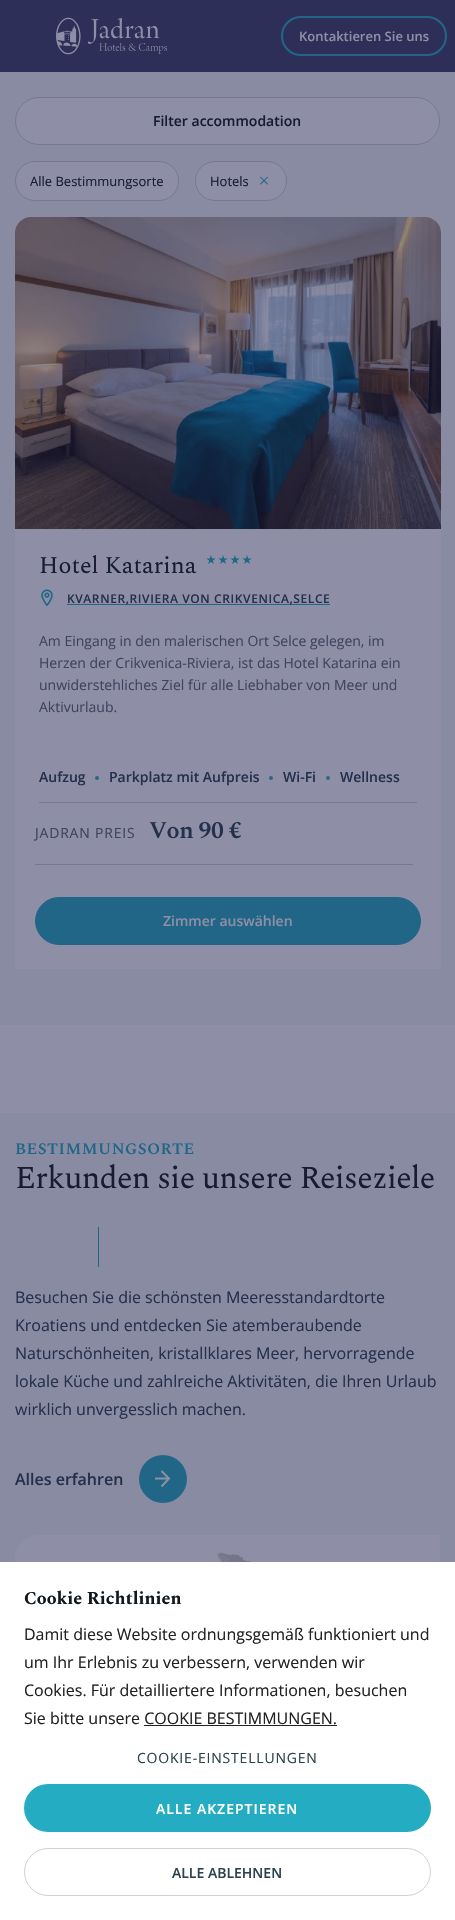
#include "include/core/SkBlurTypes.h"
#include "include/core/SkCanvas.h"
#include "include/core/SkData.h"
#include "include/core/SkFont.h"
#include "include/core/SkFontMgr.h"
#include "include/core/SkImage.h"
#include "include/core/SkMaskFilter.h"
#include "include/core/SkPaint.h"
#include "include/core/SkPathBuilder.h"
#include "include/core/SkTextBlob.h"
#include "include/effects/SkDashPathEffect.h"
#include "include/effects/SkGradientShader.h"
#include "include/utils/SkParsePath.h"

extern sk_sp<SkFontMgr> fontMgr;

static SkFont font(const char* family, int weight, float size, bool italic = false) {
    SkFontStyle style(weight, SkFontStyle::kNormal_Width,
        italic ? SkFontStyle::kItalic_Slant : SkFontStyle::kUpright_Slant);
    SkFont result(fontMgr->matchFamilyStyle(family, style), size);
    result.setSubpixel(true);
    return result;
}

static void drawLabel(SkCanvas* canvas, const char* s, float x, float y, const SkFont& font, SkColor color) {
    SkPaint ink(SkColor4f::FromColor(color));
    ink.setAntiAlias(true);
    canvas->drawString(s, x, y, font, ink);
}

static void drawTracked(SkCanvas* canvas, const char* s, float x, float y, const SkFont& font, const SkPaint& ink, float letter, float word) {
    std::vector<SkGlyphID> glyphs(font.countText(s, strlen(s), SkTextEncoding::kUTF8));
    std::vector<float> xs(glyphs.size());
    font.textToGlyphs(s, strlen(s), SkTextEncoding::kUTF8, glyphs);
    font.getXPos(glyphs, xs, x);
    float extra = 0;
    for (size_t i = 0; i < glyphs.size(); i++) {
        xs[i] += extra;
        extra += letter + word * (glyphs[i] == font.unicharToGlyph(' '));
    }
    canvas->drawTextBlob(SkTextBlob::MakeFromPosHGlyphs(glyphs, xs, y, font), 0, 0, ink);
}

static void fillRect(SkCanvas* canvas, float x, float y, float w, float h, SkColor color) {
    SkPaint ink(SkColor4f::FromColor(color));
    ink.setAntiAlias(true);
    canvas->drawRect(SkRect::MakeXYWH(x, y, w, h), ink);
}

static void fillRRect(SkCanvas* canvas, float x, float y, float w, float h, float radius, SkColor color) {
    SkPaint ink(SkColor4f::FromColor(color));
    ink.setAntiAlias(true);
    canvas->drawRoundRect(SkRect::MakeXYWH(x, y, w, h), radius, radius, ink);
}

static void drawPhoto(SkCanvas* canvas, const char* path, float x, float y, float w, float h) {
    auto image = SkImages::DeferredFromEncodedData(SkData::MakeFromFileName(path));
    canvas->drawImageRect(image, SkRect::MakeXYWH(x, y, w, h), SkSamplingOptions());
}

static SkPath parsePath(const char* data, bool evenOdd = false) {
    SkPath result = *SkParsePath::FromSVGString(data);
    if (evenOdd) result.setFillType(SkPathFillType::kEvenOdd);
    return result;
}

void draw(SkCanvas* canvas) {
    SkPaint paint;
    paint.setAntiAlias(true);
    canvas->clear(0xFF8E8FA6);
    fillRect(canvas, 0, 0, 455, 1, 0xFF2E305A);
    fillRect(canvas, 0, 1, 455, 71, 0xFF2D2F59);
    drawPhoto(canvas, "assets/img1.png", 56, 17, 111, 38);
    paint.setStroke(true);
    paint.setStrokeWidth(2);
    paint.setColor(0xFF216687);
    canvas->drawRoundRect(SkRect::MakeXYWH(282, 17, 164, 38), 19, 19, paint);
    SkFont font1 = font("Open Sans", 600, 13);
    drawLabel(canvas, "Kontaktieren Sie uns", 299, 41, font1, 0xFF8E8FA6);
    fillRect(canvas, 0, 72, 455, 953, 0xFF898BA3);
    paint.setStroke(false);
    paint.setColor(0xFF8E8FA6);
    canvas->drawRoundRect(SkRect::MakeXYWH(15.5f, 97.5f, 424, 47), 23.5f, 23.5f, paint);
    paint.setStroke(true);
    paint.setStrokeWidth(1);
    paint.setColor(0xFF767894);
    canvas->drawRoundRect(SkRect::MakeXYWH(15.5f, 97.5f, 424, 47), 23.5f, 23.5f, paint);
    SkFont font2 = font("Open Sans", 600, 14);
    drawLabel(canvas, "Filter accommodation", 153, 126, font2, 0xFF171C35);
    paint.setStroke(false);
    paint.setColor(0xFF8E8FA6);
    canvas->drawRoundRect(SkRect::MakeXYWH(15.5f, 161.5f, 163, 39), 19.5f, 19.5f, paint);
    paint.setStroke(true);
    paint.setColor(0xFF767894);
    canvas->drawRoundRect(SkRect::MakeXYWH(15.5f, 161.5f, 163, 39), 19.5f, 19.5f, paint);
    SkFont font3 = font("Open Sans", 400, 13);
    drawLabel(canvas, "Alle Bestimmungsorte", 30, 186, font3, 0xFF171C35);
    paint.setStroke(false);
    paint.setColor(0xFF8E8FA6);
    canvas->drawRoundRect(SkRect::MakeXYWH(195.5f, 161.5f, 91, 39), 19.5f, 19.5f, paint);
    paint.setStroke(true);
    paint.setColor(0xFF767894);
    canvas->drawRoundRect(SkRect::MakeXYWH(195.5f, 161.5f, 91, 39), 19.5f, 19.5f, paint);
    drawLabel(canvas, "Hotels", 210, 186, font3, 0xFF171C35);
    drawPhoto(canvas, "assets/img2.png", 260, 176, 8, 9);
    paint.setStroke(false);
    paint.setColor(0xFF8E8FA6);
    canvas->drawPath(parsePath("M31 217H425C434 217 441 224 441 233V969H15V233C15 224 22 217 31 217Z"), paint);
    drawPhoto(canvas, "assets/img3.png", 15, 217, 426, 312);
    SkFont font4 = font("Spectral", 400, 24);
    drawLabel(canvas, "Hotel Katarina", 39, 573, font4, 0xFF171C35);
    drawPhoto(canvas, "assets/img4.png", 206, 555, 10, 9);
    drawPhoto(canvas, "assets/img4.png", 218, 555, 10, 9);
    drawPhoto(canvas, "assets/img4.png", 230, 555, 10, 9);
    drawPhoto(canvas, "assets/img4.png", 242, 555, 10, 9);
    drawPhoto(canvas, "assets/img5.png", 41, 589, 12, 17);
    fillRect(canvas, 67, 604, 263, 1, 0xFF216687);
    SkFont font5 = font("Open Sans", 600, 12);
    paint.setColor(0xFF24304C);
    drawTracked(canvas, "KVARNER,RIVIERA VON CRIKVENICA,SELCE", 67, 603, font5, paint, 0.6f, 0);
    SkFont font6 = font("Open Sans", 400, 14);
    drawLabel(canvas, "Am Eingang in den malerischen Ort Selce gelegen, im", 39, 646, font6, 0xFF3E445F);
    drawLabel(canvas, "Herzen der Crikvenica-Riviera, ist das Hotel Katarina ein", 39, 668, font6, 0xFF3E445F);
    drawLabel(canvas, "unwiderstehliches Ziel für alle Liebhaber von Meer und", 39, 690, font6, 0xFF3E445F);
    drawLabel(canvas, "Aktivurlaub.", 39, 712, font6, 0xFF3E445F);
    fillRect(canvas, 39, 802, 378, 1, 0xFF767894);
    drawLabel(canvas, "Aufzug", 39, 782, font2, 0xFF24304C);
    paint.setColor(0xFF2C6687);
    canvas->drawCircle(97, 778, 2, paint);
    drawLabel(canvas, "Parkplatz mit Aufpreis", 109, 782, font2, 0xFF24304C);
    canvas->drawCircle(271, 778, 2, paint);
    drawLabel(canvas, "Wi-Fi", 283, 782, font2, 0xFF24304C);
    canvas->drawCircle(328, 778, 2, paint);
    drawLabel(canvas, "Wellness", 340, 782, font2, 0xFF24304C);
    paint.setColor(0xFF3E445F);
    drawTracked(canvas, "JADRAN PREIS", 35, 838, font6, paint, 0.8f, 0);
    SkFont font7 = font("Spectral", 600, 24);
    paint.setColor(0xFF24304C);
    drawTracked(canvas, "Von 90 €", 149, 838, font7, paint, -0.5f, 0);
    fillRect(canvas, 35, 864, 378, 1, 0xFF767894);
    paint.setColor(0xFF216687);
    canvas->drawRoundRect(SkRect::MakeXYWH(35.5f, 897.5f, 385, 47), 23.5f, 23.5f, paint);
    paint.setStroke(true);
    canvas->drawRoundRect(SkRect::MakeXYWH(35.5f, 897.5f, 385, 47), 23.5f, 23.5f, paint);
    drawLabel(canvas, "Zimmer auswählen", 163, 926, font2, 0xFF8E8FA6);
    fillRect(canvas, 0, 1113, 455, 449, 0xFF898BA3);
    SkFont font8 = font("Spectral", 600, 16);
    paint.setStroke(false);
    drawTracked(canvas, "BESTIMMUNGSORTE", 15, 1154, font8, paint, 0.5f, 0);
    SkFont font9 = font("Spectral", 400, 32);
    paint.setColor(0xFF171C35);
    drawTracked(canvas, "Erkunden sie unsere Reiseziele", 15, 1188, font9, paint, -0.65f, 0);
    fillRect(canvas, 98, 1227, 1, 40, 0xFF216687);
    SkFont font10 = font("Open Sans", 400, 16);
    drawLabel(canvas, "Besuchen Sie die schönsten Meeresstandardtorte", 15, 1303, font10, 0xFF24304C);
    drawLabel(canvas, "Kroatiens und entdecken Sie atemberaubende", 15, 1331, font10, 0xFF24304C);
    drawLabel(canvas, "Naturschönheiten, kristallklares Meer, hervorragende", 15, 1359, font10, 0xFF24304C);
    drawLabel(canvas, "lokale Küche und zahlreiche Aktivitäten, die Ihren Urlaub", 15, 1387, font10, 0xFF24304C);
    drawLabel(canvas, "wirklich unvergesslich machen.", 15, 1415, font10, 0xFF24304C);
    paint.setColor(0xFF216687);
    canvas->drawCircle(163, 1479, 24, paint);
    SkFont font11 = font("Open Sans", 600, 16);
    drawLabel(canvas, "Alles erfahren", 15, 1485, font11, 0xFF24304C);
    paint.setStroke(true);
    paint.setStrokeWidth(2);
    paint.setColor(0xFF8E8FA6);
    canvas->drawPath(parsePath("M161.5 1486.5L169 1478.5L161.5 1471M169 1478.5H155"), paint);
    drawPhoto(canvas, "assets/img6.png", 15, 1535, 425, 27);
    fillRect(canvas, 0, 1562, 455, 358, 0xFFFFFFFF);
    SkFont font12 = font("Spectral", 700, 18);
    drawLabel(canvas, "Cookie Richtlinien", 24, 1604, font12, 0xFF11181E);
    drawLabel(canvas, "Damit diese Website ordnungsgemäß funktioniert und", 24, 1640, font10, 0xFF222222);
    drawLabel(canvas, "um Ihr Erlebnis zu verbessern, verwenden wir", 24, 1668, font10, 0xFF222222);
    drawLabel(canvas, "Cookies. Für detailliertere Informationen, besuchen", 24, 1696, font10, 0xFF222222);
    drawLabel(canvas, "Sie bitte unsere COOKIE BESTIMMUNGEN.", 24, 1724, font10, 0xFF222222);
    fillRect(canvas, 144, 1725, 193, 1, 0xFF222222);
    paint.setStroke(false);
    paint.setColor(0xFF2B414B);
    drawTracked(canvas, "COOKIE-EINSTELLUNGEN", 137, 1763, font6, paint, 0.8f, 0);
    fillRRect(canvas, 24, 1784, 407, 48, 24, 0xFF24ADC2);
    paint.setColor(0xFFFFFFFF);
    drawTracked(canvas, "ALLE AKZEPTIEREN", 156, 1814, font2, paint, 1, 0);
    paint.setStroke(true);
    paint.setStrokeWidth(1);
    paint.setColor(0xFFCED0DB);
    canvas->drawRoundRect(SkRect::MakeXYWH(24.5f, 1848.5f, 406, 47), 23.5f, 23.5f, paint);
    drawLabel(canvas, "ALLE ABLEHNEN", 172, 1878, font2, 0xFF2B414B);
}
